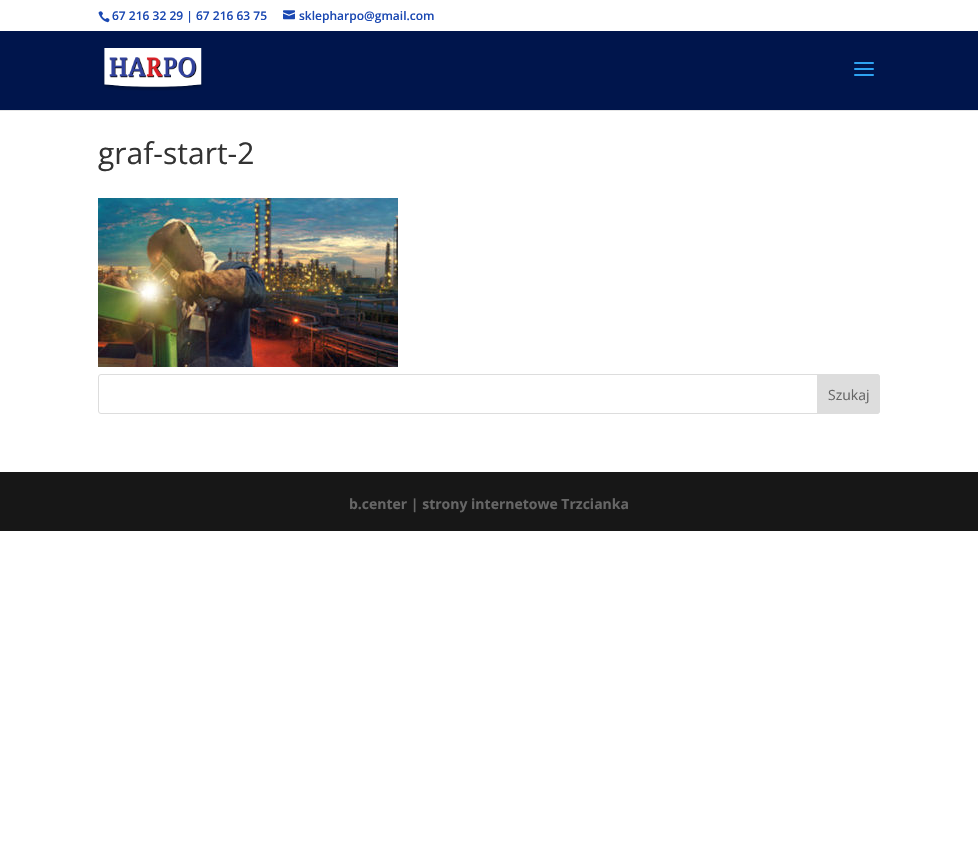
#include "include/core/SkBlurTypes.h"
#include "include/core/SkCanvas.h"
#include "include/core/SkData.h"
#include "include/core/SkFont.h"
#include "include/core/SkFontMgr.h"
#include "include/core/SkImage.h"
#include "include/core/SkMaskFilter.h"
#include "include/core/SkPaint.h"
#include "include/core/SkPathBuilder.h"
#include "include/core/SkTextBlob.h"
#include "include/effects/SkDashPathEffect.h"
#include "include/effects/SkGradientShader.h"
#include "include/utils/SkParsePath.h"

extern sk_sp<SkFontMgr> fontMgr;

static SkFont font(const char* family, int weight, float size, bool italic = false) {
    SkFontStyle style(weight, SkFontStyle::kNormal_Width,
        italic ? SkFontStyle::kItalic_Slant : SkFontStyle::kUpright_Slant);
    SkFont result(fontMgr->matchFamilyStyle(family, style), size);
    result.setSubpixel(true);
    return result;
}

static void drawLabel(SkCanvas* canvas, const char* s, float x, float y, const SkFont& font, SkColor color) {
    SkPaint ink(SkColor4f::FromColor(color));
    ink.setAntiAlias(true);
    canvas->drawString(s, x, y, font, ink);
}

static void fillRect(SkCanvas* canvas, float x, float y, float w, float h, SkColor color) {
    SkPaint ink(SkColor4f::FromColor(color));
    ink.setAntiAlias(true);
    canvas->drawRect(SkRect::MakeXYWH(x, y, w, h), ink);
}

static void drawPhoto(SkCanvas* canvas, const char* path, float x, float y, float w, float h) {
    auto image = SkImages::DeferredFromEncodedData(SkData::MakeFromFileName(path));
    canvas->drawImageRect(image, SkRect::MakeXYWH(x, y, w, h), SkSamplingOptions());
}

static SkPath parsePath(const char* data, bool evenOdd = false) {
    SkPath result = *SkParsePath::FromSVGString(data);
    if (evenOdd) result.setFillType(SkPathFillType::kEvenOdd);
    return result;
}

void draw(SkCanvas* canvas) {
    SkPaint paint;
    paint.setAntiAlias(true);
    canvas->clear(0xFFFFFFFF);
    drawPhoto(canvas, "assets/img1.png", 98, 11, 12, 12);
    SkFont font1 = font("Open Sans", 600, 12);
    drawLabel(canvas, "67 216 32 29 | 67 216 63 75", 112, 20, font1, 0xFF1A48B2);
    drawPhoto(canvas, "assets/img2.png", 283, 10, 12, 10);
    drawLabel(canvas, "sklepharpo@gmail.com", 299, 20, font1, 0xFF1A48B2);
    fillRect(canvas, 0, 110, 978, 1, 0xFFE6E6E6);
    fillRect(canvas, 0, 31, 978, 79, 0xFF00154C);
    drawPhoto(canvas, "assets/img3.png", 102, 48, 102, 43);
    drawPhoto(canvas, "assets/img4.png", 854, 62, 20, 14);
    SkFont font2 = font("Open Sans", 400, 30);
    drawLabel(canvas, "graf-start-2", 98, 164, font2, 0xFF333333);
    drawPhoto(canvas, "assets/img5.png", 98, 198, 300, 169);
    paint.setStroke(true);
    paint.setStrokeWidth(1);
    paint.setColor(0xFFDDDDDD);
    canvas->drawRoundRect(SkRect::MakeXYWH(98.5f, 374.5f, 781, 39), 2.5f, 2.5f, paint);
    paint.setStroke(false);
    canvas->drawPath(parsePath("M817.5 374.5H877C878.5 374.5 879.5 375.5 879.5 377V411C879.5 412.5 878.5 413.5 877 413.5H817.5Z"), paint);
    paint.setStroke(true);
    canvas->drawPath(parsePath("M817.5 374.5H877C878.5 374.5 879.5 375.5 879.5 377V411C879.5 412.5 878.5 413.5 877 413.5H817.5Z"), paint);
    SkFont font3 = font("Open Sans", 400, 14);
    drawLabel(canvas, "Szukaj", 828, 400, font3, 0xFF666666);
    fillRect(canvas, 0, 472, 978, 59, 0xFF171717);
    SkFont font4 = font("Open Sans", 700, 14);
    drawLabel(canvas, "b.center | strony internetowe Trzcianka", 349, 509, font4, 0xFF666666);
}
